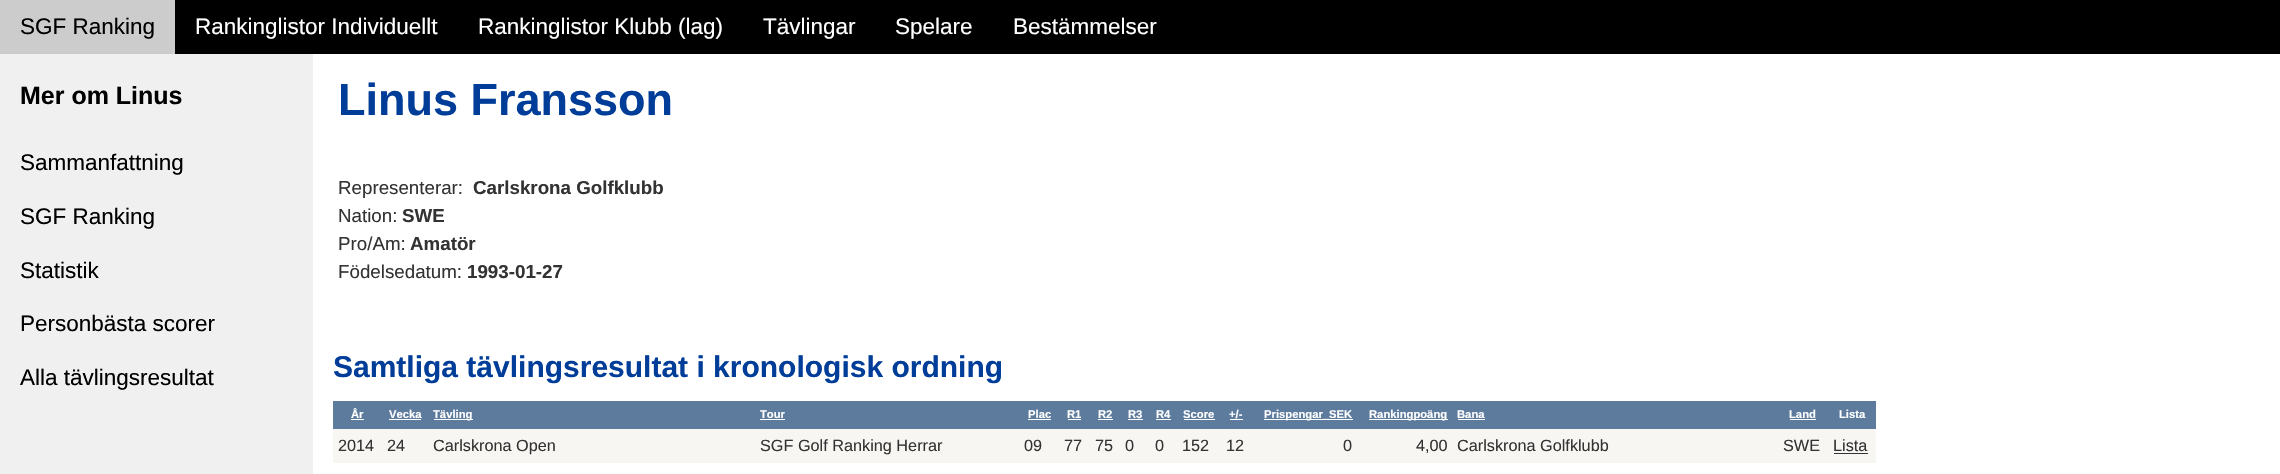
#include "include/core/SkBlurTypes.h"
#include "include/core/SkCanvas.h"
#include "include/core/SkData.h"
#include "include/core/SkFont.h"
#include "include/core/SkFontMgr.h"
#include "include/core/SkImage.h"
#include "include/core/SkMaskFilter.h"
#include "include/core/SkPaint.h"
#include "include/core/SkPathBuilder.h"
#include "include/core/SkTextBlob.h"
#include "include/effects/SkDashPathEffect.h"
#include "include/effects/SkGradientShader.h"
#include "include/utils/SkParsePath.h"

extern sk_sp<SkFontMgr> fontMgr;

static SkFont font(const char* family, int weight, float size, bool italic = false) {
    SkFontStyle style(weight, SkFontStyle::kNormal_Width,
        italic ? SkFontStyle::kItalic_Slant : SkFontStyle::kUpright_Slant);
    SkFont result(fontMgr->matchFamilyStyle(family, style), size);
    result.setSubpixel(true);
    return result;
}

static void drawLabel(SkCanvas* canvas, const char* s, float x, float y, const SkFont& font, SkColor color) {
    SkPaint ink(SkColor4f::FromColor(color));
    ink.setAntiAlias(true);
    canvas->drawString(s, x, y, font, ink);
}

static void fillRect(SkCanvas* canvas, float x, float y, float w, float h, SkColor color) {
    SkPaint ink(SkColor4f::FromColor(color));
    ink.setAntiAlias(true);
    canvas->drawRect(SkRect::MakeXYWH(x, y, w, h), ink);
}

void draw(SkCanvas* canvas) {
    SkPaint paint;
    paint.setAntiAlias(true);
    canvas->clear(0xFFFFFFFF);
    fillRect(canvas, 175, 0, 2105, 54, 0xFF000000);
    fillRect(canvas, 0, 0, 175, 54, 0xFFCCCCCC);
    SkFont font1 = font("Liberation Sans", 400, 22.5f);
    drawLabel(canvas, "SGF Ranking", 20, 34, font1, 0xFF000000);
    drawLabel(canvas, "Rankinglistor Individuellt", 195, 34, font1, 0xFFFFFFFF);
    drawLabel(canvas, "Rankinglistor Klubb (lag)", 478, 34, font1, 0xFFFFFFFF);
    drawLabel(canvas, "Tävlingar", 763, 34, font1, 0xFFFFFFFF);
    drawLabel(canvas, "Spelare", 895, 34, font1, 0xFFFFFFFF);
    drawLabel(canvas, "Bestämmelser", 1013, 34, font1, 0xFFFFFFFF);
    fillRect(canvas, 0, 54, 313, 420, 0xFFF0F0F0);
    SkFont font2 = font("Liberation Sans", 700, 25);
    drawLabel(canvas, "Mer om Linus", 20, 104, font2, 0xFF000000);
    drawLabel(canvas, "Sammanfattning", 20, 170, font1, 0xFF000000);
    drawLabel(canvas, "SGF Ranking", 20, 224, font1, 0xFF000000);
    drawLabel(canvas, "Statistik", 20, 278, font1, 0xFF000000);
    drawLabel(canvas, "Personbästa scorer", 20, 331, font1, 0xFF000000);
    drawLabel(canvas, "Alla tävlingsresultat", 20, 385, font1, 0xFF000000);
    SkFont font3 = font("Liberation Sans", 700, 45);
    drawLabel(canvas, "Linus Fransson", 338, 115, font3, 0xFF003D99);
    SkFont font4 = font("Liberation Sans", 400, 18.75f);
    drawLabel(canvas, "Representerar:", 338, 194, font4, 0xFF333333);
    SkFont font5 = font("Liberation Sans", 700, 18.75f);
    drawLabel(canvas, "Carlskrona Golfklubb", 473, 194, font5, 0xFF333333);
    drawLabel(canvas, "Nation:", 338, 222, font4, 0xFF333333);
    drawLabel(canvas, "SWE", 402, 222, font5, 0xFF333333);
    drawLabel(canvas, "Pro/Am:", 338, 250, font4, 0xFF333333);
    drawLabel(canvas, "Amatör", 410, 250, font5, 0xFF333333);
    drawLabel(canvas, "Födelsedatum:", 338, 278, font4, 0xFF333333);
    drawLabel(canvas, "1993-01-27", 467, 278, font5, 0xFF333333);
    SkFont font6 = font("Liberation Sans", 700, 30);
    drawLabel(canvas, "Samtliga tävlingsresultat i kronologisk ordning", 333, 377, font6, 0xFF003D99);
    fillRect(canvas, 333, 401, 1543, 28, 0xFF5D7B9D);
    SkFont font7 = font("Liberation Sans", 700, 11.25f);
    drawLabel(canvas, "År", 351, 418, font7, 0xFFFFFFFF);
    fillRect(canvas, 351, 419, 13, 1, 0xFFFFFFFF);
    drawLabel(canvas, "Vecka", 389, 418, font7, 0xFFFFFFFF);
    fillRect(canvas, 389, 419, 32, 1, 0xFFFFFFFF);
    fillRect(canvas, 434, 419, 39, 1, 0xFFFFFFFF);
    drawLabel(canvas, "Tävling", 433, 418, font7, 0xFFFFFFFF);
    drawLabel(canvas, "Tour", 760, 418, font7, 0xFFFFFFFF);
    fillRect(canvas, 760, 419, 25, 1, 0xFFFFFFFF);
    drawLabel(canvas, "Plac", 1028, 418, font7, 0xFFFFFFFF);
    fillRect(canvas, 1028, 419, 23, 1, 0xFFFFFFFF);
    drawLabel(canvas, "R1", 1067, 418, font7, 0xFFFFFFFF);
    fillRect(canvas, 1068, 419, 13, 1, 0xFFFFFFFF);
    drawLabel(canvas, "R2", 1098, 418, font7, 0xFFFFFFFF);
    fillRect(canvas, 1098, 419, 15, 1, 0xFFFFFFFF);
    drawLabel(canvas, "R3", 1128, 418, font7, 0xFFFFFFFF);
    fillRect(canvas, 1128, 419, 15, 1, 0xFFFFFFFF);
    drawLabel(canvas, "R4", 1156, 418, font7, 0xFFFFFFFF);
    fillRect(canvas, 1156, 419, 15, 1, 0xFFFFFFFF);
    drawLabel(canvas, "Score", 1183, 418, font7, 0xFFFFFFFF);
    fillRect(canvas, 1184, 419, 31, 1, 0xFFFFFFFF);
    drawLabel(canvas, "+/-", 1229, 418, font7, 0xFFFFFFFF);
    fillRect(canvas, 1230, 419, 13, 1, 0xFFFFFFFF);
    fillRect(canvas, 1264, 419, 89, 1, 0xFFFFFFFF);
    drawLabel(canvas, "Prispengar_SEK", 1264, 418, font7, 0xFFFFFFFF);
    fillRect(canvas, 1369, 419, 79, 1, 0xFFFFFFFF);
    drawLabel(canvas, "Rankingpoäng", 1369, 418, font7, 0xFFFFFFFF);
    drawLabel(canvas, "Bana", 1457, 418, font7, 0xFFFFFFFF);
    fillRect(canvas, 1458, 419, 27, 1, 0xFFFFFFFF);
    drawLabel(canvas, "Land", 1789, 418, font7, 0xFFFFFFFF);
    fillRect(canvas, 1790, 419, 26, 1, 0xFFFFFFFF);
    drawLabel(canvas, "Lista", 1839, 418, font7, 0xFFFFFFFF);
    fillRect(canvas, 333, 429, 1543, 34, 0xFFF7F6F3);
    SkFont font8 = font("Liberation Sans", 400, 16.25f);
    drawLabel(canvas, "2014", 338, 451, font8, 0xFF333333);
    drawLabel(canvas, "24", 387, 451, font8, 0xFF333333);
    drawLabel(canvas, "Carlskrona Open", 433, 451, font8, 0xFF333333);
    drawLabel(canvas, "SGF Golf Ranking Herrar", 760, 451, font8, 0xFF333333);
    drawLabel(canvas, "09", 1024, 451, font8, 0xFF333333);
    drawLabel(canvas, "77", 1064, 451, font8, 0xFF333333);
    drawLabel(canvas, "75", 1095, 451, font8, 0xFF333333);
    drawLabel(canvas, "0", 1125, 451, font8, 0xFF333333);
    drawLabel(canvas, "0", 1155, 451, font8, 0xFF333333);
    drawLabel(canvas, "152", 1182, 451, font8, 0xFF333333);
    drawLabel(canvas, "12", 1226, 451, font8, 0xFF333333);
    drawLabel(canvas, "0", 1343, 451, font8, 0xFF333333);
    drawLabel(canvas, "4,00", 1416, 451, font8, 0xFF333333);
    drawLabel(canvas, "Carlskrona Golfklubb", 1457, 451, font8, 0xFF333333);
    drawLabel(canvas, "SWE", 1783, 451, font8, 0xFF333333);
    drawLabel(canvas, "Lista", 1833, 451, font8, 0xFF333333);
    fillRect(canvas, 1834, 453, 34, 1, 0xFF333333);
}
